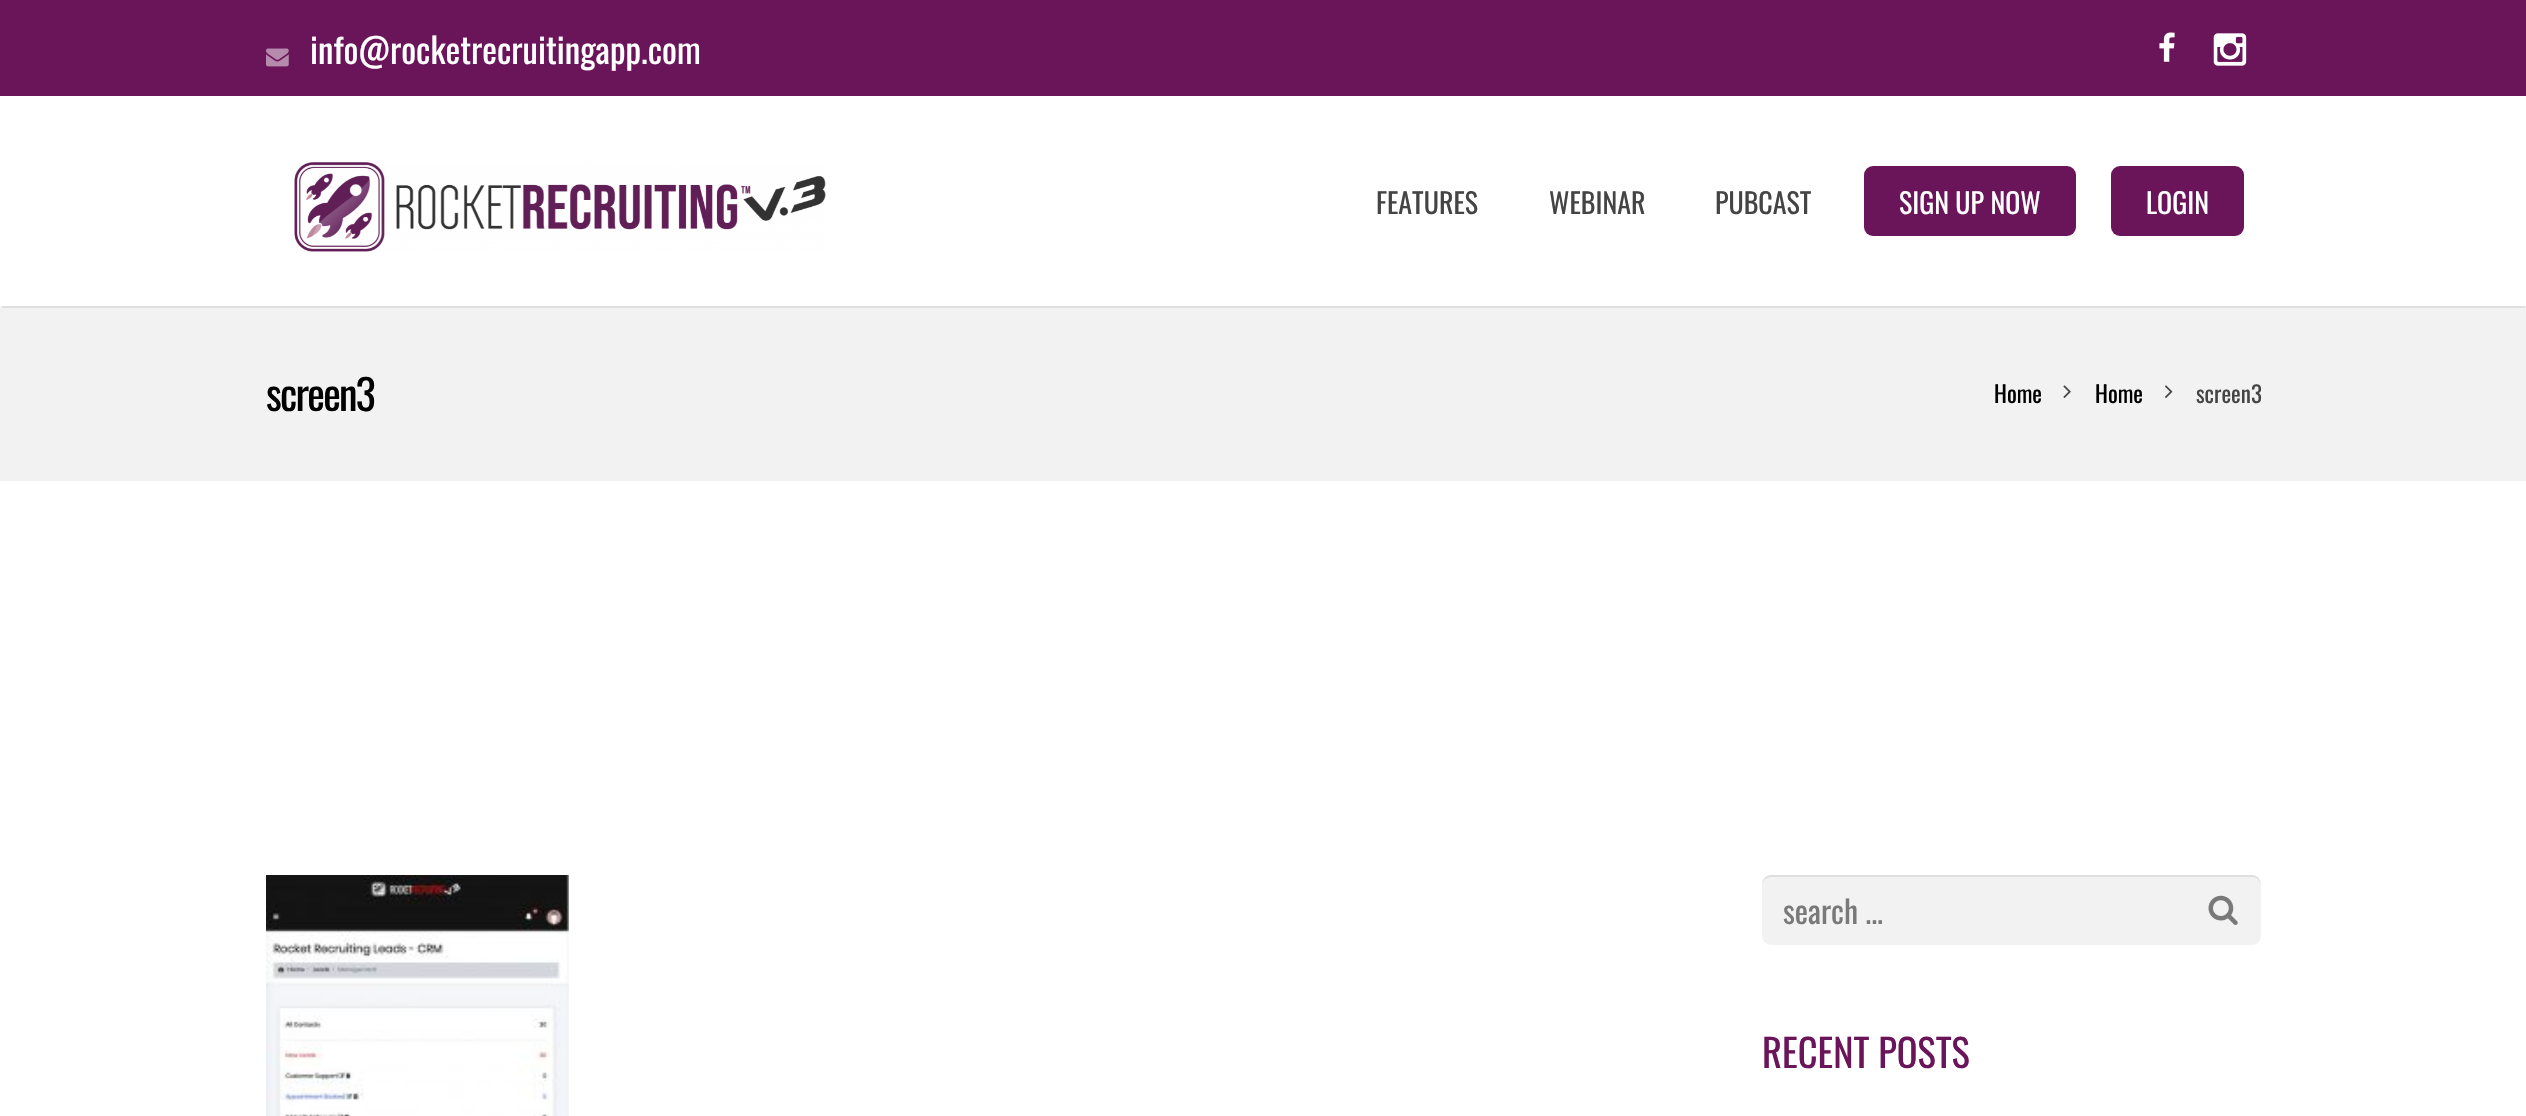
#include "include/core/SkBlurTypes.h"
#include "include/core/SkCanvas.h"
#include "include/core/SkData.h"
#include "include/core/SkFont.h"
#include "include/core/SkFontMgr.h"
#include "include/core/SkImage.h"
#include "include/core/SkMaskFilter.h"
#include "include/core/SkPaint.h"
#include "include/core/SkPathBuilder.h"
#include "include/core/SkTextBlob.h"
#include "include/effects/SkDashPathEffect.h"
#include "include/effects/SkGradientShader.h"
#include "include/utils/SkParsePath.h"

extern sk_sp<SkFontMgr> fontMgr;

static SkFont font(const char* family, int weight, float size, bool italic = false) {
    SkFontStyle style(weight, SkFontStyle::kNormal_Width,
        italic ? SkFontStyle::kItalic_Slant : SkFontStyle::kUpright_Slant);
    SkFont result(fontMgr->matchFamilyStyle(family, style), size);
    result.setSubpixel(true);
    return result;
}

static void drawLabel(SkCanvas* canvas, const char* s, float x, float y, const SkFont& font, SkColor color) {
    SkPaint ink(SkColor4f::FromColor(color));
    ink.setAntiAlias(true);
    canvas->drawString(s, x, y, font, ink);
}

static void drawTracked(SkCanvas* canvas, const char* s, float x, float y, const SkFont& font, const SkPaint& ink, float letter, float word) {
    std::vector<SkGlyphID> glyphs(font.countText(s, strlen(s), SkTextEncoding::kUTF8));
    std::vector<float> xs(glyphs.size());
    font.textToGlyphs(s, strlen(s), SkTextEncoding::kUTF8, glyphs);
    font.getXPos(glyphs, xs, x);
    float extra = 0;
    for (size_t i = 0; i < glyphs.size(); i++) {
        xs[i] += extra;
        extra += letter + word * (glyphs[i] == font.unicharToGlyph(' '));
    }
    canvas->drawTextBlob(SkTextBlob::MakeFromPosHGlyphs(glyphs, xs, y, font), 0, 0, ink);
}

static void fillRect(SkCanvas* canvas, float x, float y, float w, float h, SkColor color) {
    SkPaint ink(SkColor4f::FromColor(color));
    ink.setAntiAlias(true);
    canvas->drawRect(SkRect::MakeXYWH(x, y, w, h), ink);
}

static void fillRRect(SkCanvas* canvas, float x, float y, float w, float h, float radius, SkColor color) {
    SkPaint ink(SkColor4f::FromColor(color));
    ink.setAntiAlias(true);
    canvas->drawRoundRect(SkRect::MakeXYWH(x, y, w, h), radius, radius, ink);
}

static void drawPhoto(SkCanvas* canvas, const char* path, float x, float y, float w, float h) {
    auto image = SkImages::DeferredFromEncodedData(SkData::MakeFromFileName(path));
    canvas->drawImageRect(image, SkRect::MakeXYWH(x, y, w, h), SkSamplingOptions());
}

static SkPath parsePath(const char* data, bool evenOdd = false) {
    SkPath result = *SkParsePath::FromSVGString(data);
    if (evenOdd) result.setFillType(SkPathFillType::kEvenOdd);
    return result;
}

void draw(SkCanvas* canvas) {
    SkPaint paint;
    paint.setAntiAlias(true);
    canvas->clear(0xFFFFFFFF);
    fillRect(canvas, 0, 0, 2526, 96, 0xFF6A145A);
    drawPhoto(canvas, "assets/img1.png", 266, 48, 23, 19);
    SkFont font1 = font("Oswald", 400, 35);
    drawLabel(canvas, "info@rocketrecruitingapp.com", 310, 64, font1, 0xFFFFFFFF);
    drawPhoto(canvas, "assets/img2.png", 2159, 32, 16, 30);
    drawPhoto(canvas, "assets/img3.png", 2213, 33, 34, 33);
    fillRect(canvas, 0, 306, 2526, 175, 0xFFF2F2F2);
    fillRect(canvas, 2, 306, 2523, 2, 0xFFDFDFDF);
    drawPhoto(canvas, "assets/img4.png", 294, 162, 532, 90);
    SkFont font2 = font("Oswald", 400, 28);
    drawLabel(canvas, "FEATURES", 1376, 214, font2, 0xFF444444);
    drawLabel(canvas, "WEBINAR", 1549, 214, font2, 0xFF444444);
    drawLabel(canvas, "PUBCAST", 1715, 214, font2, 0xFF444444);
    fillRRect(canvas, 1864, 166, 212, 70, 9, 0xFF6A145A);
    drawLabel(canvas, "SIGN UP NOW", 1899, 214, font2, 0xFFFFFFFF);
    fillRRect(canvas, 2111, 166, 133, 70, 9, 0xFF6A145A);
    drawLabel(canvas, "LOGIN", 2146, 214, font2, 0xFFFFFFFF);
    SkFont font3 = font("Oswald", 400, 42);
    paint.setColor(0xFF000000);
    drawTracked(canvas, "screen3", 266, 411, font3, paint, -1.75f, 0);
    SkFont font4 = font("Oswald", 400, 23);
    drawLabel(canvas, "Home", 1994, 403, font4, 0xFF000000);
    drawPhoto(canvas, "assets/img5.png", 2063, 385, 8, 13);
    drawLabel(canvas, "Home", 2095, 403, font4, 0xFF000000);
    drawPhoto(canvas, "assets/img6.png", 2165, 385, 8, 13);
    drawLabel(canvas, "screen3", 2196, 403, font4, 0xFF444444);
    drawPhoto(canvas, "assets/img7.png", 266, 875, 303, 241);
    fillRRect(canvas, 1762, 875, 499, 70, 9, 0xFFF2F2F2);
    paint.setColor(0x14000000);
    canvas->drawPath(parsePath("M1771 877H2252C2257 877 2261 881 2261 886C2261 880 2258 875 2252 875H1771C1765 875 1762 880 1762 886C1762 881 1766 877 1771 877Z"), paint);
    SkFont font5 = font("Oswald", 400, 31.5f);
    drawLabel(canvas, "search ...", 1783, 924, font5, 0xFF797979);
    drawPhoto(canvas, "assets/img8.png", 2208, 895, 30, 30);
    SkFont font6 = font("Oswald", 400, 38.5f);
    drawLabel(canvas, "RECENT POSTS", 1762, 1068, font6, 0xFF6A145A);
}
